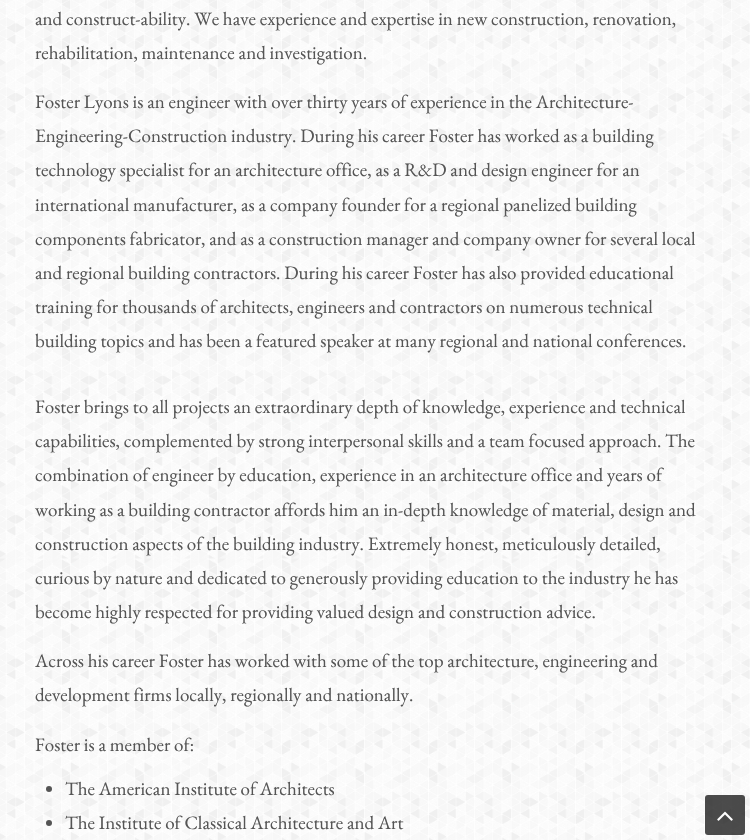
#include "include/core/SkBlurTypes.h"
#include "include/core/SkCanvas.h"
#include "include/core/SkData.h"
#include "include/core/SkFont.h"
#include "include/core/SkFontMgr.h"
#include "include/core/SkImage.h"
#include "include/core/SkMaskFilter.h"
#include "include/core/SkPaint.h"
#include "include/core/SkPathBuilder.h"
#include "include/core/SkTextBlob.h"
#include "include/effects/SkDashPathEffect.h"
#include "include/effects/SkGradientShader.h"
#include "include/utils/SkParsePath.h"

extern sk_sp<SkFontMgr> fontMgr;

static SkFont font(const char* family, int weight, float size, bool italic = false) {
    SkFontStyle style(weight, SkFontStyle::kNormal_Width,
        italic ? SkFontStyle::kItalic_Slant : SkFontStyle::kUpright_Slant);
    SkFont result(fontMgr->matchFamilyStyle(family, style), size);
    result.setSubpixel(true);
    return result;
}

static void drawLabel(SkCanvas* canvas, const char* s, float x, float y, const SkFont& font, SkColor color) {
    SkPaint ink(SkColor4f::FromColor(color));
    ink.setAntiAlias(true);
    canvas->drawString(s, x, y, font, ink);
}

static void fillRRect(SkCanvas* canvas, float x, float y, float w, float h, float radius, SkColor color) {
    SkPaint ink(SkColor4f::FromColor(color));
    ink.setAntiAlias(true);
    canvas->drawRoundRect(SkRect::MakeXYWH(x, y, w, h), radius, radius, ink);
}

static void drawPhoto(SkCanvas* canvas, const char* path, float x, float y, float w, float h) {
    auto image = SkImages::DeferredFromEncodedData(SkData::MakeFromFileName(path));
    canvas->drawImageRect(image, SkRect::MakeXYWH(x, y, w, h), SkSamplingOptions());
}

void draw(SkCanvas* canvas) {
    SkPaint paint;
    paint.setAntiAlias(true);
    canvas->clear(0xFFFFFFFF);
    drawPhoto(canvas, "assets/img1.png", 0, 0, 750, 840);
    SkFont font1 = font("EB Garamond", 400, 19);
    drawLabel(canvas, "and construct-ability. We have experience and expertise in new construction, renovation,", 35, 25, font1, 0xFF555555);
    drawLabel(canvas, "rehabilitation, maintenance and investigation.", 35, 59, font1, 0xFF555555);
    drawLabel(canvas, "Foster Lyons is an engineer with over thirty years of experience in the Architecture-", 35, 108, font1, 0xFF555555);
    drawLabel(canvas, "Engineering-Construction industry. During his career Foster has worked as a building", 35, 142, font1, 0xFF555555);
    drawLabel(canvas, "technology specialist for an architecture office, as a R&D and design engineer for an", 35, 176, font1, 0xFF555555);
    drawLabel(canvas, "international manufacturer, as a company founder for a regional panelized building", 35, 211, font1, 0xFF555555);
    drawLabel(canvas, "components fabricator, and as a construction manager and company owner for several local", 35, 245, font1, 0xFF555555);
    drawLabel(canvas, "and regional building contractors. During his career Foster has also provided educational", 35, 279, font1, 0xFF555555);
    drawLabel(canvas, "training for thousands of architects, engineers and contractors on numerous technical", 35, 313, font1, 0xFF555555);
    drawLabel(canvas, "building topics and has been a featured speaker at many regional and national conferences.", 35, 347, font1, 0xFF555555);
    drawLabel(canvas, "Foster brings to all projects an extraordinary depth of knowledge, experience and technical", 35, 413, font1, 0xFF555555);
    drawLabel(canvas, "capabilities, complemented by strong interpersonal skills and a team focused approach. The", 35, 447, font1, 0xFF555555);
    drawLabel(canvas, "combination of engineer by education, experience in an architecture office and years of", 35, 481, font1, 0xFF555555);
    drawLabel(canvas, "working as a building contractor affords him an in-depth knowledge of material, design and", 35, 516, font1, 0xFF555555);
    drawLabel(canvas, "construction aspects of the building industry. Extremely honest, meticulously detailed,", 35, 550, font1, 0xFF555555);
    drawLabel(canvas, "curious by nature and dedicated to generously providing education to the industry he has", 35, 584, font1, 0xFF555555);
    drawLabel(canvas, "become highly respected for providing valued design and construction advice.", 35, 618, font1, 0xFF555555);
    drawLabel(canvas, "Across his career Foster has worked with some of the top architecture, engineering and", 35, 667, font1, 0xFF555555);
    drawLabel(canvas, "development firms locally, regionally and nationally.", 35, 701, font1, 0xFF555555);
    drawLabel(canvas, "Foster is a member of:", 35, 751, font1, 0xFF555555);
    paint.setColor(0xFF555555);
    canvas->drawCircle(49, 789, 3, paint);
    drawLabel(canvas, "The American Institute of Architects", 65, 795, font1, 0xFF555555);
    canvas->drawCircle(49, 823, 3, paint);
    drawLabel(canvas, "The Institute of Classical Architecture and Art", 65, 829, font1, 0xFF555555);
    fillRRect(canvas, 705, 795, 40, 40, 3, 0xB3000000);
    drawPhoto(canvas, "assets/img2.png", 717, 811, 16, 10);
}
